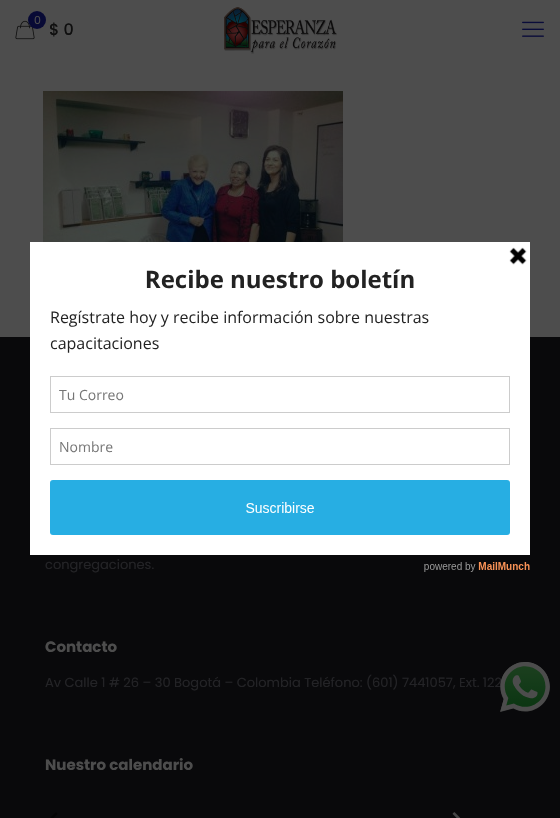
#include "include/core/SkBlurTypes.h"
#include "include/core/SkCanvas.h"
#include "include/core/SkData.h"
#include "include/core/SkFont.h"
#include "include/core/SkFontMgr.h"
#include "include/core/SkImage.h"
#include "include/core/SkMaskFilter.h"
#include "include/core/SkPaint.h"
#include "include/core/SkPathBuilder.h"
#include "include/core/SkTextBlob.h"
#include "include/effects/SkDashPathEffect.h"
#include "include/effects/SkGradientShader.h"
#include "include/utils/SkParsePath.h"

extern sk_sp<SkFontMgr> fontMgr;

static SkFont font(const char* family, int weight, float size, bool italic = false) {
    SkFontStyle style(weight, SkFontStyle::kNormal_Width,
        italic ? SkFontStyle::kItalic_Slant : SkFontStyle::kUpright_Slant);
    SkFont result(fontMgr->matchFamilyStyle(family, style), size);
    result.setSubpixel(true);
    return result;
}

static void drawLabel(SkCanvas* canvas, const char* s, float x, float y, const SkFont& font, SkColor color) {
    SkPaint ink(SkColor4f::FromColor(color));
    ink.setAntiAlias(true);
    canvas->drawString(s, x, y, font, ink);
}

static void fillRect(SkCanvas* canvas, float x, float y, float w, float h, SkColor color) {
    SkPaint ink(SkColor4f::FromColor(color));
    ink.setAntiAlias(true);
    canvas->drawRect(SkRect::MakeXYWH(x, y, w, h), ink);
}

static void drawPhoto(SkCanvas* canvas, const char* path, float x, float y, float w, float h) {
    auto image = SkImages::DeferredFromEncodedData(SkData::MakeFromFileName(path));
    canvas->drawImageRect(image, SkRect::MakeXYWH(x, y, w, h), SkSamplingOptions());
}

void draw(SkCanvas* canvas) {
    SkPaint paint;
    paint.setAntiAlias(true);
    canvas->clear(0xFF4D4D4D);
    drawPhoto(canvas, "assets/img1.png", 15, 20, 20, 20);
    paint.setColor(0xFF080A35);
    canvas->drawCircle(37, 20, 9, paint);
    SkFont font1 = font("Poppins", 400, 11);
    drawLabel(canvas, "0", 34, 24, font1, 0xFF4D4D4D);
    SkFont font2 = font("Poppins", 500, 16);
    drawLabel(canvas, "$ 0", 49, 35, font2, 0xFF0F0F0F);
    drawPhoto(canvas, "assets/img2.png", 224, 7, 113, 47);
    drawPhoto(canvas, "assets/img3.png", 522, 21, 22, 16);
    drawPhoto(canvas, "assets/img4.png", 43, 91, 300, 151);
    fillRect(canvas, 0, 337, 560, 481, 0xFF09090B);
    SkFont font3 = font("Poppins", 400, 13);
    drawLabel(canvas, "congregaciones.", 45, 569, font3, 0xFF232326);
    SkFont font4 = font("Poppins", 700, 15);
    drawLabel(canvas, "Contacto", 45, 652, font4, 0xFF4D4D4D);
    drawLabel(canvas, "Av Calle 1 # 26 – 30 Bogotá – Colombia Teléfono: (601) 7441057, Ext. 122", 45, 687, font3, 0xFF232326);
    drawLabel(canvas, "Nuestro calendario", 45, 770, font4, 0xFF4D4D4D);
    drawPhoto(canvas, "assets/img5.png", 50, 812, 8, 6);
    drawPhoto(canvas, "assets/img6.png", 452, 812, 9, 6);
    drawPhoto(canvas, "assets/img7.png", 30, 242, 500, 330);
    drawPhoto(canvas, "assets/img8.png", 500, 662, 50, 50);
}
